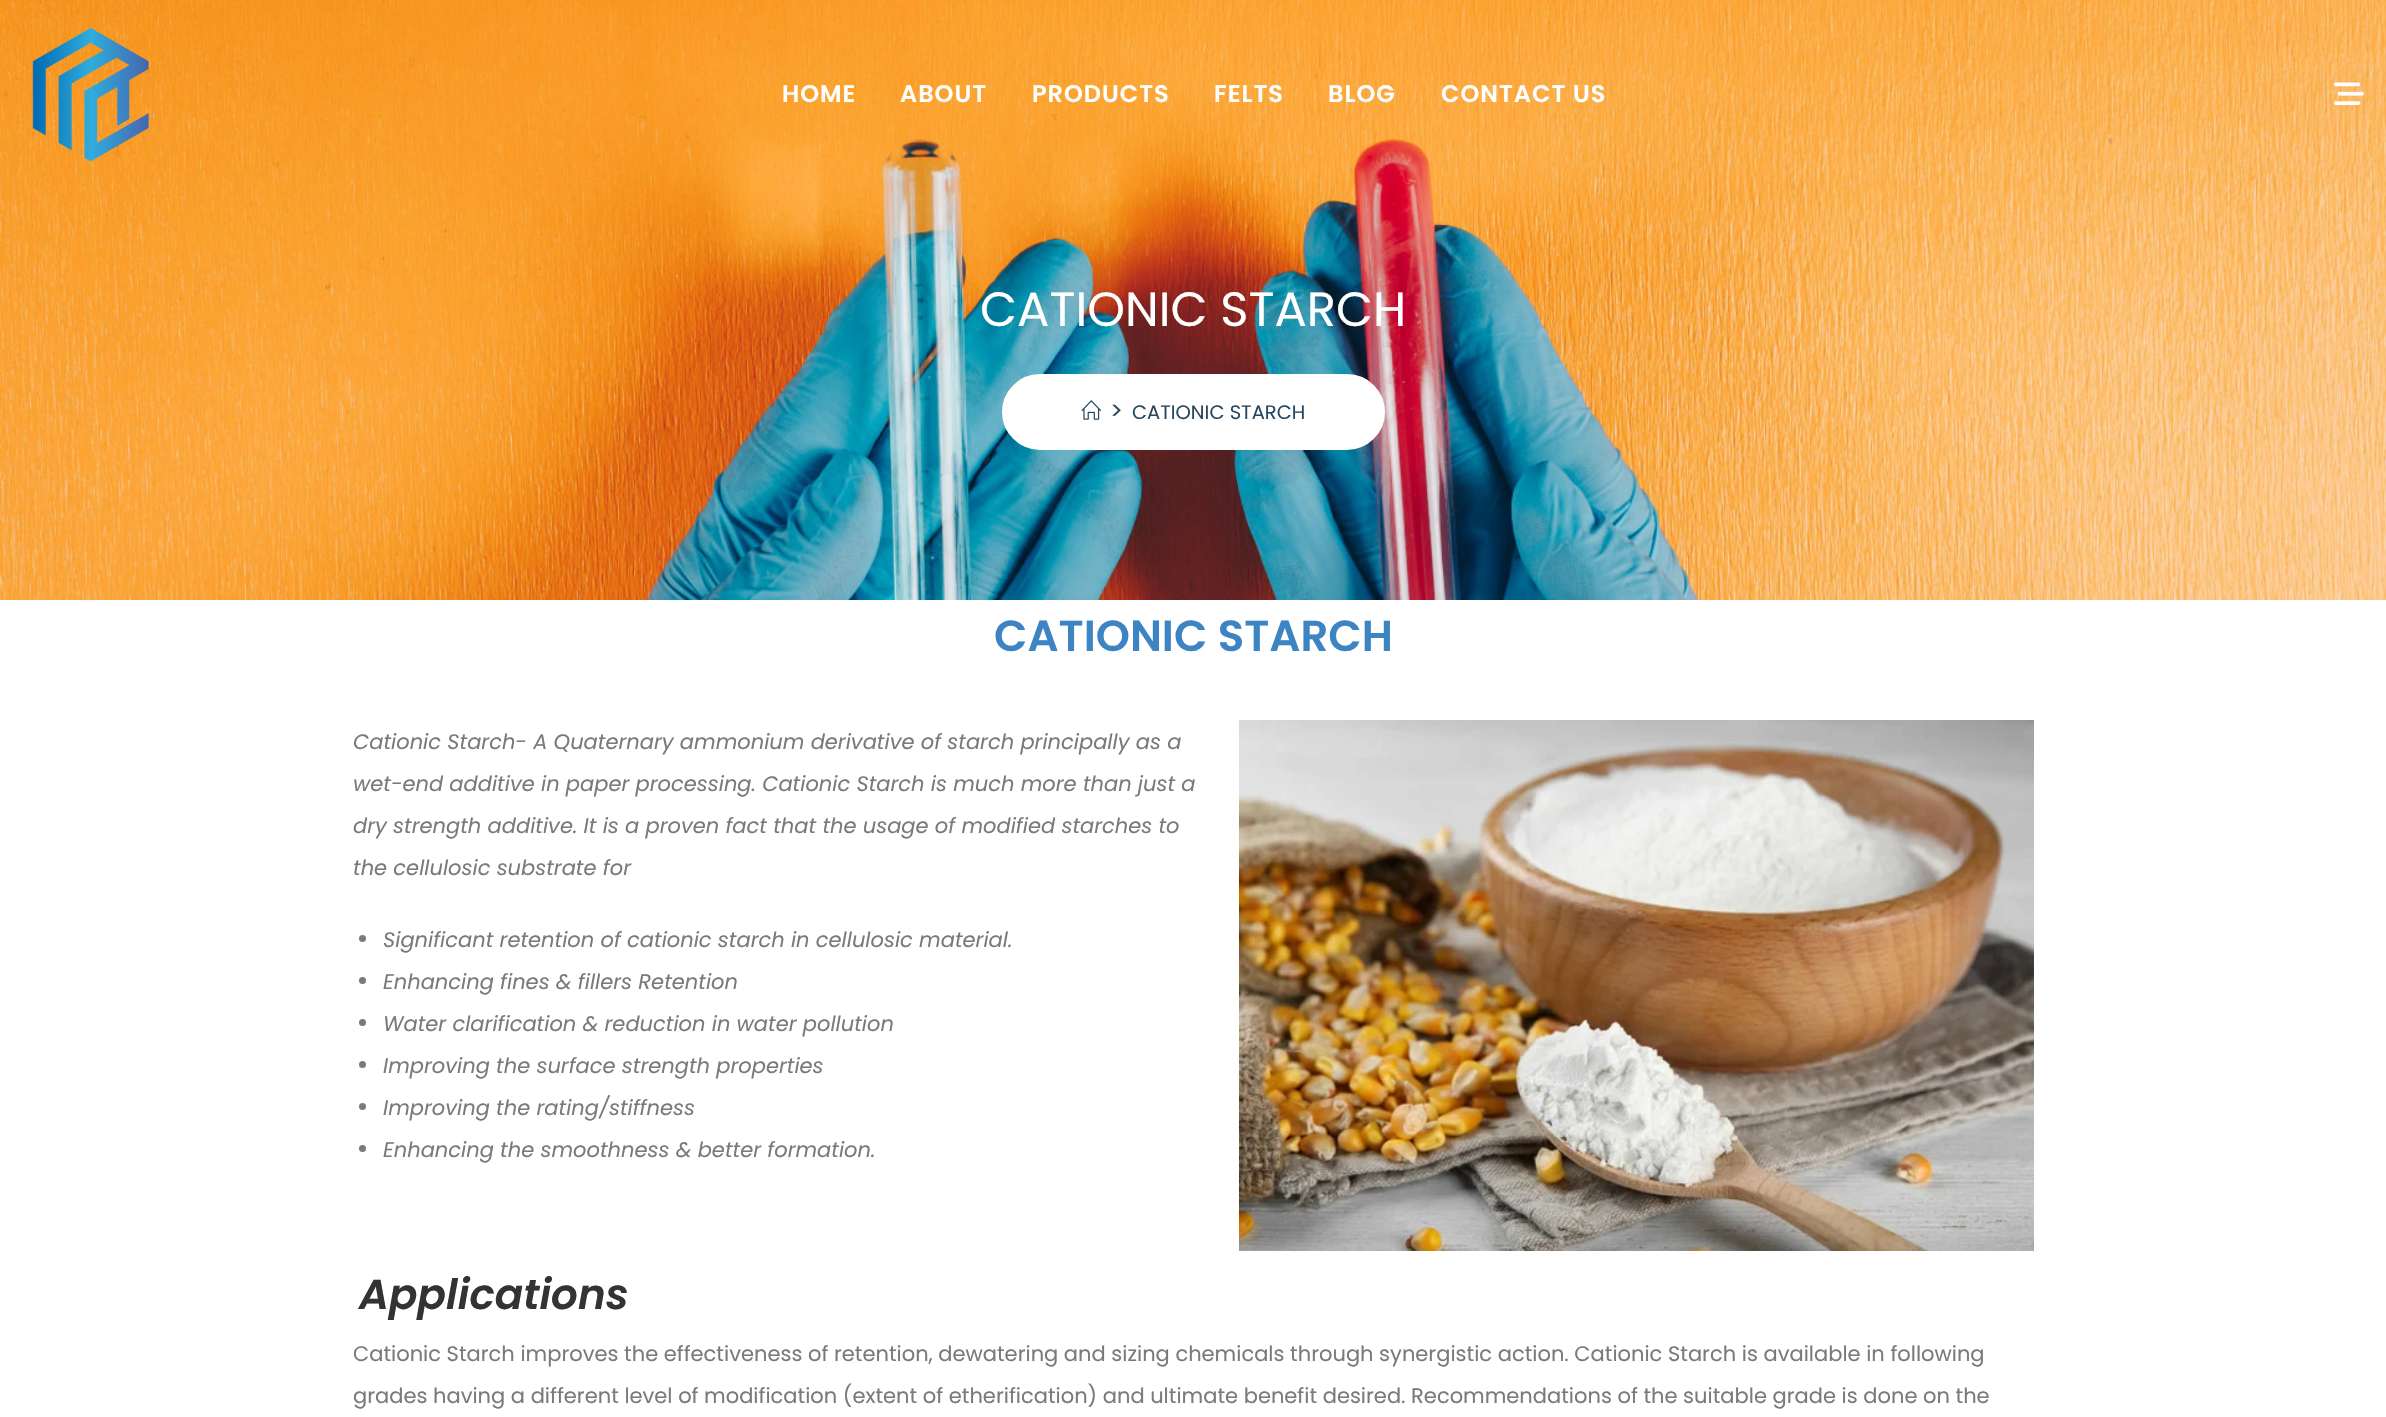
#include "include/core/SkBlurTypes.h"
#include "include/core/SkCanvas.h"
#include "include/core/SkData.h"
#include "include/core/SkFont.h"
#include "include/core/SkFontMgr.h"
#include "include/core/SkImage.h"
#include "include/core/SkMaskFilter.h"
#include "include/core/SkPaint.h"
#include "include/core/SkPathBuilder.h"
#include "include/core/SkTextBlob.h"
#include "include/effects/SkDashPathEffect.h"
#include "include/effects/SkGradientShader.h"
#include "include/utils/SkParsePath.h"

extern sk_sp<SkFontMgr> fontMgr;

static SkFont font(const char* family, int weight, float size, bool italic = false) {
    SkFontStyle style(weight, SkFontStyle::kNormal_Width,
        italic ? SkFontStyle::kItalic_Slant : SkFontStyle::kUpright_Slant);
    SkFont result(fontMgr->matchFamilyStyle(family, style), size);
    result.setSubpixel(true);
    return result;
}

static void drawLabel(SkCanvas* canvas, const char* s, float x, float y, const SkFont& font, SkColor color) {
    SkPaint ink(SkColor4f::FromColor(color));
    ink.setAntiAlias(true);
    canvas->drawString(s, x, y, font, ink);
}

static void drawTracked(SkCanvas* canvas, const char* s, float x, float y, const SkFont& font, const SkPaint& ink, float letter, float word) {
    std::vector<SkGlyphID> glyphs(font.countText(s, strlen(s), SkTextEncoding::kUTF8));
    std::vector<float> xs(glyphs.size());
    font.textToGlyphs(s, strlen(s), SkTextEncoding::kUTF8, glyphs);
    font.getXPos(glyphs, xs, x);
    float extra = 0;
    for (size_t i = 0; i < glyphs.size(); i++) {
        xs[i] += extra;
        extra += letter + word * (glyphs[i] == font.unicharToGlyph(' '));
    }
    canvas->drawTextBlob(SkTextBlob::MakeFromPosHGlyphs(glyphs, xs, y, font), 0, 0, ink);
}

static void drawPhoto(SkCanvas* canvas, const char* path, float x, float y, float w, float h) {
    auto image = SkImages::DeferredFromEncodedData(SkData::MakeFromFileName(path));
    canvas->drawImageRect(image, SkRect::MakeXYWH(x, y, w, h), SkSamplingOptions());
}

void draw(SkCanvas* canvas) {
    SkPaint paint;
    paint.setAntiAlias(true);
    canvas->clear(0xFFFFFFFF);
    drawPhoto(canvas, "assets/img3.png", 0, 0, 2386, 600);
    drawPhoto(canvas, "assets/img1.png", 32, 27, 117, 135);
    SkFont font1 = font("Poppins", 600, 24);
    paint.setColor(0xFFFFFFFF);
    drawTracked(canvas, "HOME", 782, 102, font1, paint, 1, 0);
    drawTracked(canvas, "ABOUT", 900, 102, font1, paint, 1, 0);
    drawTracked(canvas, "PRODUCTS", 1032, 102, font1, paint, 1, 0);
    drawTracked(canvas, "FELTS", 1214, 102, font1, paint, 1, 0);
    drawTracked(canvas, "BLOG", 1328, 102, font1, paint, 1, 0);
    drawTracked(canvas, "CONTACT US", 1441, 102, font1, paint, 1, 0);
    drawPhoto(canvas, "assets/img2.png", 2334, 82, 30, 23);
    SkFont font2 = font("Poppins", 400, 48);
    drawLabel(canvas, "CATIONIC STARCH", 980, 326, font2, 0xFFFFFFFF);
    canvas->drawRoundRect(SkRect::MakeXYWH(1003.5f, 375.5f, 380, 73), 36.5f, 36.5f, paint);
    paint.setStroke(true);
    paint.setStrokeWidth(3);
    canvas->drawRoundRect(SkRect::MakeXYWH(1003.5f, 375.5f, 380, 73), 36.5f, 36.5f, paint);
    drawPhoto(canvas, "assets/img4.png", 1081, 400, 20, 20);
    SkFont font3 = font("Poppins", 400, 24);
    drawLabel(canvas, ">", 1110, 419, font3, 0xFF29485F);
    SkFont font4 = font("Poppins", 400, 19.5f);
    drawLabel(canvas, "CATIONIC STARCH", 1132, 419, font4, 0xFF29485F);
    SkFont font5 = font("Poppins", 600, 43.5f);
    drawLabel(canvas, "CATIONIC STARCH", 994, 651, font5, 0xFF3D84C2);
    SkFont font6 = font("Poppins", 400, 21, true);
    drawLabel(canvas, "Cationic Starch- A Quaternary ammonium derivative of starch principally as a", 353, 749, font6, 0xFF7A7A7A);
    drawLabel(canvas, "wet-end additive in paper processing. Cationic Starch is much more than just a", 353, 791, font6, 0xFF7A7A7A);
    drawLabel(canvas, "dry strength additive. It is a proven fact that the usage of modified starches to", 353, 833, font6, 0xFF7A7A7A);
    drawLabel(canvas, "the cellulosic substrate for", 353, 875, font6, 0xFF7A7A7A);
    drawPhoto(canvas, "assets/img5.png", 1239, 720, 795, 531);
    paint.setStroke(false);
    paint.setColor(0xFF7A7A7A);
    canvas->drawCircle(362.5f, 938.5f, 3.5f, paint);
    drawLabel(canvas, "Significant retention of cationic starch in cellulosic material.", 383, 947, font6, 0xFF7A7A7A);
    canvas->drawCircle(362.5f, 980.5f, 3.5f, paint);
    drawLabel(canvas, "Enhancing fines & fillers Retention", 383, 989, font6, 0xFF7A7A7A);
    canvas->drawCircle(362.5f, 1022.5f, 3.5f, paint);
    drawLabel(canvas, "Water clarification & reduction in water pollution", 383, 1031, font6, 0xFF7A7A7A);
    canvas->drawCircle(362.5f, 1064.5f, 3.5f, paint);
    drawLabel(canvas, "Improving the surface strength properties", 383, 1073, font6, 0xFF7A7A7A);
    canvas->drawCircle(362.5f, 1106.5f, 3.5f, paint);
    drawLabel(canvas, "Improving the rating/stiffness", 383, 1115, font6, 0xFF7A7A7A);
    canvas->drawCircle(362.5f, 1148.5f, 3.5f, paint);
    drawLabel(canvas, "Enhancing the smoothness & better formation.", 383, 1157, font6, 0xFF7A7A7A);
    SkFont font7 = font("Poppins", 600, 42, true);
    drawLabel(canvas, "Applications", 359, 1309, font7, 0xFF333333);
    SkFont font8 = font("Poppins", 400, 21);
    drawLabel(canvas, "Cationic Starch improves the effectiveness of retention, dewatering and sizing chemicals through synergistic action. Cationic Starch is available in following", 353, 1361, font8, 0xFF7A7A7A);
    drawLabel(canvas, "grades having a different level of modification (extent of etherification) and ultimate benefit desired. Recommendations of the suitable grade is done on the", 353, 1403, font8, 0xFF7A7A7A);
}
